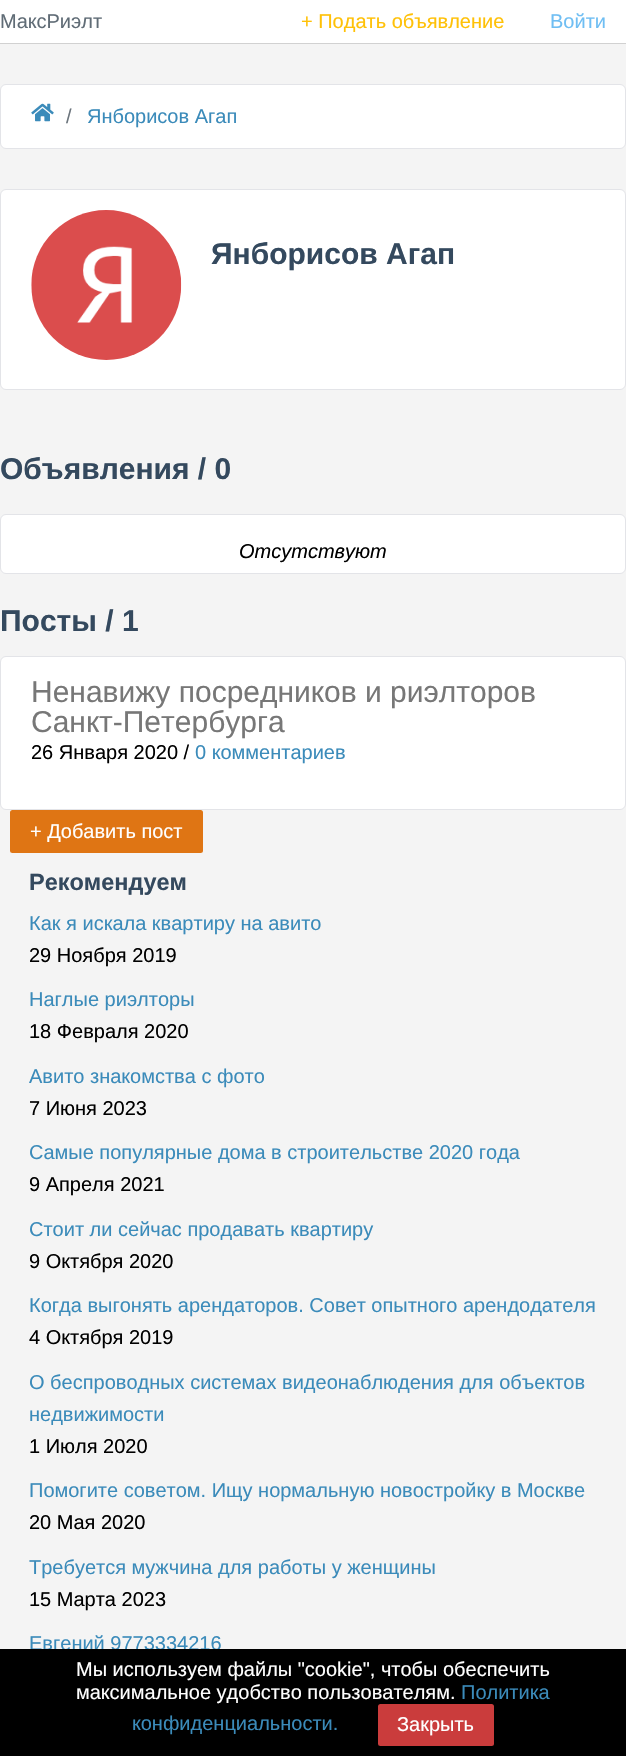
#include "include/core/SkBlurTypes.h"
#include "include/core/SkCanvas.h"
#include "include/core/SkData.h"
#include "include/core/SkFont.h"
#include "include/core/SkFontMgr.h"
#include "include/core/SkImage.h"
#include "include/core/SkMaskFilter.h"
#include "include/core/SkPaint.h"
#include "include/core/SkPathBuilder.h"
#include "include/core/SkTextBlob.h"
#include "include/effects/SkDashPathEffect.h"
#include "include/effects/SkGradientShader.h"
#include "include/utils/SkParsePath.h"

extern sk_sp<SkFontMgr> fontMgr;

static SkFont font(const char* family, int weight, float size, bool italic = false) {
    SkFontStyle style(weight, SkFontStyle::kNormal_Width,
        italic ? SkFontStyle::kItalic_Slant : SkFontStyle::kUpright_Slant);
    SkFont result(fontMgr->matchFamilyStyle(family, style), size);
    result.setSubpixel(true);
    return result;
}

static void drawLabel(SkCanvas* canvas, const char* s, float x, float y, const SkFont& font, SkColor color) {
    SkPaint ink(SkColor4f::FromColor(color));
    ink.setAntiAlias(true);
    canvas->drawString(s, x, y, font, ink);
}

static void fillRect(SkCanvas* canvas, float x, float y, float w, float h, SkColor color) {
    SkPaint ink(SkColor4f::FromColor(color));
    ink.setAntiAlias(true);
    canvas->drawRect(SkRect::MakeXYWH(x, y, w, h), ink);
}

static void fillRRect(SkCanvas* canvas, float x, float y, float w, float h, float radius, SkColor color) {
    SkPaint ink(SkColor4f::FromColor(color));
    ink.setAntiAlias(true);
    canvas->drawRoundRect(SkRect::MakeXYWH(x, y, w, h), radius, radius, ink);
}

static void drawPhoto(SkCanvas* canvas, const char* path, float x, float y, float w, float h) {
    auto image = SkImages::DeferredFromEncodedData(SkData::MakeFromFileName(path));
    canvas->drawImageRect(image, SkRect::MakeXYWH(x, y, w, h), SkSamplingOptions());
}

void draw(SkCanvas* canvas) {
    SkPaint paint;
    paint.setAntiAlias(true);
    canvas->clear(0xFFF4F4F4);
    fillRect(canvas, 0, 0, 626, 43, 0xFFFFFFFF);
    fillRect(canvas, 0, 43, 626, 1, 0xFFD1D1D1);
    SkFont font1 = font("Liberation Sans", 400, 20);
    drawLabel(canvas, "МаксРиэлт", 0, 28, font1, 0xFF606C76);
    drawLabel(canvas, "+ Подать объявление", 301, 28, font1, 0xFFFFC107);
    drawLabel(canvas, "Войти", 550, 28, font1, 0xFF6FBEF3);
    paint.setColor(0xFFFFFFFF);
    canvas->drawRoundRect(SkRect::MakeXYWH(0.5f, 84.5f, 625, 64), 5.5f, 5.5f, paint);
    paint.setStroke(true);
    paint.setStrokeWidth(1);
    paint.setColor(0xFFE3E4E8);
    canvas->drawRoundRect(SkRect::MakeXYWH(0.5f, 84.5f, 625, 64), 5.5f, 5.5f, paint);
    drawPhoto(canvas, "assets/img1.png", 31, 103, 23, 19);
    drawLabel(canvas, "/", 66, 123, font1, 0xFF6C757D);
    drawLabel(canvas, "Янборисов Агап", 87, 123, font1, 0xFF3B8BBA);
    paint.setStroke(false);
    paint.setColor(0xFFFFFFFF);
    canvas->drawRoundRect(SkRect::MakeXYWH(0.5f, 189.5f, 625, 200), 5.5f, 5.5f, paint);
    paint.setStroke(true);
    paint.setColor(0xFFE3E4E8);
    canvas->drawRoundRect(SkRect::MakeXYWH(0.5f, 189.5f, 625, 200), 5.5f, 5.5f, paint);
    drawPhoto(canvas, "assets/img2.png", 31, 210, 151, 150);
    SkFont font2 = font("Liberation Sans", 700, 30);
    drawLabel(canvas, "Янборисов Агап", 211, 264, font2, 0xFF34495E);
    drawLabel(canvas, "Объявления / 0", 0, 479, font2, 0xFF34495E);
    paint.setStroke(false);
    paint.setColor(0xFFFFFFFF);
    canvas->drawRoundRect(SkRect::MakeXYWH(0.5f, 514.5f, 625, 59), 5.5f, 5.5f, paint);
    paint.setStroke(true);
    paint.setColor(0xFFE3E4E8);
    canvas->drawRoundRect(SkRect::MakeXYWH(0.5f, 514.5f, 625, 59), 5.5f, 5.5f, paint);
    SkFont font3 = font("Liberation Sans", 400, 20, true);
    drawLabel(canvas, "Отсутствуют", 239, 558, font3, 0xFF000000);
    drawLabel(canvas, "Посты / 1", 0, 631, font2, 0xFF34495E);
    paint.setStroke(false);
    paint.setColor(0xFFFFFFFF);
    canvas->drawRoundRect(SkRect::MakeXYWH(0.5f, 656.5f, 625, 153), 5.5f, 5.5f, paint);
    paint.setStroke(true);
    paint.setColor(0xFFE3E4E8);
    canvas->drawRoundRect(SkRect::MakeXYWH(0.5f, 656.5f, 625, 153), 5.5f, 5.5f, paint);
    SkFont font4 = font("Liberation Sans", 400, 30);
    drawLabel(canvas, "Ненавижу посредников и риэлторов", 31, 702, font4, 0xFF777777);
    drawLabel(canvas, "Санкт-Петербурга", 31, 732, font4, 0xFF777777);
    drawLabel(canvas, "26 Января 2020 /", 31, 759, font1, 0xFF000000);
    drawLabel(canvas, "0 комментариев", 195, 759, font1, 0xFF3B8BBA);
    fillRRect(canvas, 10, 810, 193, 43, 2.5f, 0xFFDF7514);
    drawLabel(canvas, "+ Добавить пост", 30, 838, font1, 0xFFFFFFFF);
    SkFont font5 = font("Liberation Sans", 700, 23.5f);
    drawLabel(canvas, "Рекомендуем", 29, 890, font5, 0xFF34495E);
    drawLabel(canvas, "Как я искала квартиру на авито", 29, 930, font1, 0xFF3B8BBA);
    drawLabel(canvas, "29 Ноября 2019", 29, 962, font1, 0xFF000000);
    drawLabel(canvas, "Наглые риэлторы", 29, 1006, font1, 0xFF3B8BBA);
    drawLabel(canvas, "18 Февраля 2020", 29, 1038, font1, 0xFF000000);
    drawLabel(canvas, "Авито знакомства с фото", 29, 1083, font1, 0xFF3B8BBA);
    drawLabel(canvas, "7 Июня 2023", 29, 1115, font1, 0xFF000000);
    drawLabel(canvas, "Самые популярные дома в строительстве 2020 года", 29, 1159, font1, 0xFF3B8BBA);
    drawLabel(canvas, "9 Апреля 2021", 29, 1191, font1, 0xFF000000);
    drawLabel(canvas, "Стоит ли сейчас продавать квартиру", 29, 1236, font1, 0xFF3B8BBA);
    drawLabel(canvas, "9 Октября 2020", 29, 1268, font1, 0xFF000000);
    drawLabel(canvas, "Когда выгонять арендаторов. Совет опытного арендодателя", 29, 1312, font1, 0xFF3B8BBA);
    drawLabel(canvas, "4 Октября 2019", 29, 1344, font1, 0xFF000000);
    drawLabel(canvas, "О беспроводных системах видеонаблюдения для объектов", 29, 1389, font1, 0xFF3B8BBA);
    drawLabel(canvas, "недвижимости", 29, 1421, font1, 0xFF3B8BBA);
    drawLabel(canvas, "1 Июля 2020", 29, 1453, font1, 0xFF000000);
    drawLabel(canvas, "Помогите советом. Ищу нормальную новостройку в Москве", 29, 1497, font1, 0xFF3B8BBA);
    drawLabel(canvas, "20 Мая 2020", 29, 1529, font1, 0xFF000000);
    drawLabel(canvas, "Требуется мужчина для работы у женщины", 29, 1574, font1, 0xFF3B8BBA);
    drawLabel(canvas, "15 Марта 2023", 29, 1606, font1, 0xFF000000);
    drawLabel(canvas, "Евгений 9773334216", 29, 1650, font1, 0xFF3B8BBA);
    fillRect(canvas, 0, 1649, 626, 107, 0xFF000000);
    drawLabel(canvas, "Мы используем файлы \"cookie\", чтобы обеспечить", 76, 1676, font1, 0xFFFFFFFF);
    drawLabel(canvas, "максимальное удобство пользователям.", 76, 1699, font1, 0xFFFFFFFF);
    drawLabel(canvas, "Политика", 461, 1699, font1, 0xFF3B8BBA);
    drawLabel(canvas, "конфиденциальности.", 132, 1730, font1, 0xFF3B8BBA);
    fillRRect(canvas, 378, 1704, 116, 42, 2.5f, 0xFFCA3C3C);
    drawLabel(canvas, "Закрыть", 397, 1731, font1, 0xFFFFFFFF);
}
